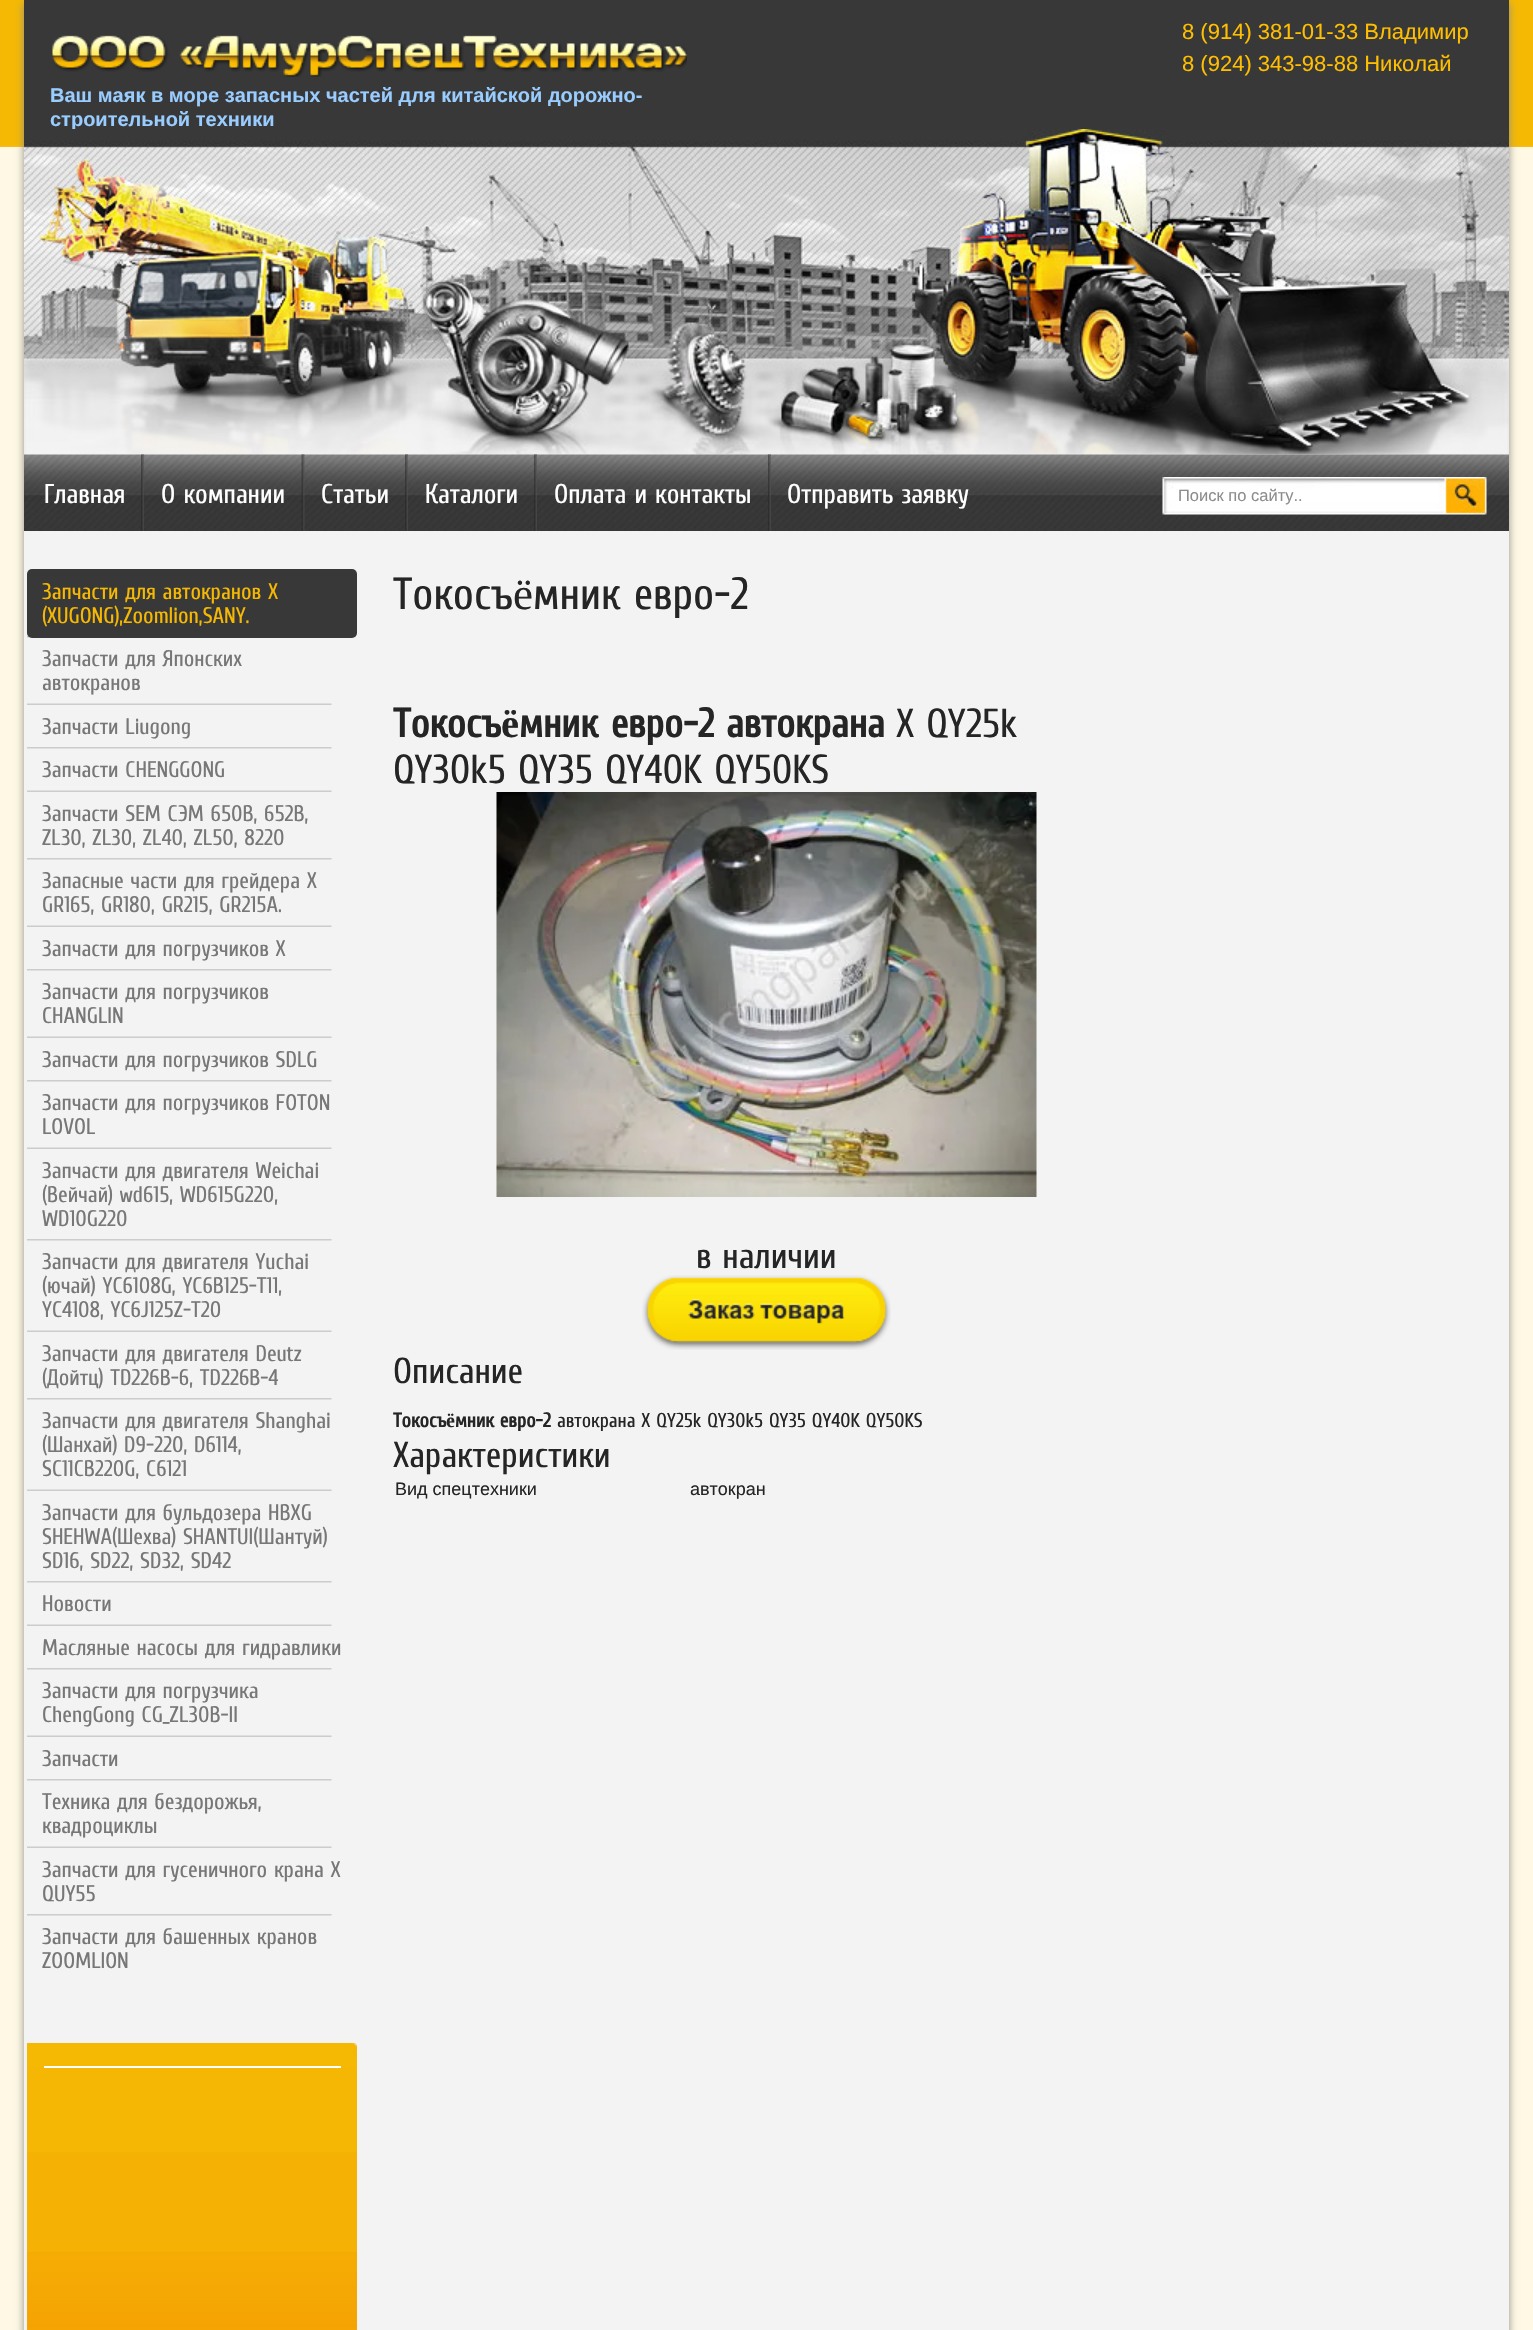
#include "include/core/SkBlurTypes.h"
#include "include/core/SkCanvas.h"
#include "include/core/SkData.h"
#include "include/core/SkFont.h"
#include "include/core/SkFontMgr.h"
#include "include/core/SkImage.h"
#include "include/core/SkMaskFilter.h"
#include "include/core/SkPaint.h"
#include "include/core/SkPathBuilder.h"
#include "include/core/SkTextBlob.h"
#include "include/effects/SkDashPathEffect.h"
#include "include/effects/SkGradientShader.h"
#include "include/utils/SkParsePath.h"

extern sk_sp<SkFontMgr> fontMgr;

static SkFont font(const char* family, int weight, float size, bool italic = false) {
    SkFontStyle style(weight, SkFontStyle::kNormal_Width,
        italic ? SkFontStyle::kItalic_Slant : SkFontStyle::kUpright_Slant);
    SkFont result(fontMgr->matchFamilyStyle(family, style), size);
    result.setSubpixel(true);
    return result;
}

static void drawLabel(SkCanvas* canvas, const char* s, float x, float y, const SkFont& font, SkColor color) {
    SkPaint ink(SkColor4f::FromColor(color));
    ink.setAntiAlias(true);
    canvas->drawString(s, x, y, font, ink);
}

static void drawTracked(SkCanvas* canvas, const char* s, float x, float y, const SkFont& font, const SkPaint& ink, float letter, float word) {
    std::vector<SkGlyphID> glyphs(font.countText(s, strlen(s), SkTextEncoding::kUTF8));
    std::vector<float> xs(glyphs.size());
    font.textToGlyphs(s, strlen(s), SkTextEncoding::kUTF8, glyphs);
    font.getXPos(glyphs, xs, x);
    float extra = 0;
    for (size_t i = 0; i < glyphs.size(); i++) {
        xs[i] += extra;
        extra += letter + word * (glyphs[i] == font.unicharToGlyph(' '));
    }
    canvas->drawTextBlob(SkTextBlob::MakeFromPosHGlyphs(glyphs, xs, y, font), 0, 0, ink);
}

static void fillRect(SkCanvas* canvas, float x, float y, float w, float h, SkColor color) {
    SkPaint ink(SkColor4f::FromColor(color));
    ink.setAntiAlias(true);
    canvas->drawRect(SkRect::MakeXYWH(x, y, w, h), ink);
}

static void fillRRect(SkCanvas* canvas, float x, float y, float w, float h, float radius, SkColor color) {
    SkPaint ink(SkColor4f::FromColor(color));
    ink.setAntiAlias(true);
    canvas->drawRoundRect(SkRect::MakeXYWH(x, y, w, h), radius, radius, ink);
}

static void drawPhoto(SkCanvas* canvas, const char* path, float x, float y, float w, float h) {
    auto image = SkImages::DeferredFromEncodedData(SkData::MakeFromFileName(path));
    canvas->drawImageRect(image, SkRect::MakeXYWH(x, y, w, h), SkSamplingOptions());
}

void draw(SkCanvas* canvas) {
    SkPaint paint;
    paint.setAntiAlias(true);
    canvas->clear(0xFFFEF8E5);
    drawPhoto(canvas, "assets/img1.png", 0, 0, 1533, 147);
    paint.setColor(0xFF918E83);
    paint.setMaskFilter(SkMaskFilter::MakeBlur(kNormal_SkBlurStyle, 4));
    canvas->drawRect(SkRect::MakeXYWH(24, 3, 1485, 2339), paint);
    paint.setMaskFilter(nullptr);
    fillRect(canvas, 24, 454, 1485, 1876, 0xFFF3F3F3);
    fillRect(canvas, 24, 0, 1485, 129, 0xFF383838);
    drawPhoto(canvas, "assets/img2.png", 52, 35, 635, 42);
    SkFont font1 = font("Liberation Sans", 400, 22);
    drawLabel(canvas, "8 (914) 381-01-33 Владимир", 1182, 39, font1, 0xFFFFBF00);
    drawLabel(canvas, "8 (924) 343-98-88 Николай", 1182, 71, font1, 0xFFFFBF00);
    SkFont font2 = font("Liberation Sans", 700, 20);
    drawLabel(canvas, "Ваш маяк в море запасных частей для китайской дорожно-", 50, 102, font2, 0xFF99CCFF);
    drawLabel(canvas, "строительной техники", 50, 126, font2, 0xFF99CCFF);
    drawPhoto(canvas, "assets/img3.png", 24, 129, 1485, 326);
    drawPhoto(canvas, "assets/img4.png", 24, 454, 1485, 77);
    SkFont font3 = font("Cuprum", 400, 27);
    drawLabel(canvas, "Главная", 44, 503, font3, 0xFFFFFFFF);
    drawPhoto(canvas, "assets/img5.png", 141, 454, 3, 77);
    drawLabel(canvas, "О компании", 161, 503, font3, 0xFFFFFFFF);
    drawPhoto(canvas, "assets/img6.png", 301, 454, 4, 77);
    drawLabel(canvas, "Статьи", 321, 503, font3, 0xFFFFFFFF);
    drawPhoto(canvas, "assets/img7.png", 405, 454, 3, 77);
    drawLabel(canvas, "Каталоги", 425, 503, font3, 0xFFFFFFFF);
    drawPhoto(canvas, "assets/img8.png", 534, 454, 3, 77);
    drawLabel(canvas, "Оплата и контакты", 554, 503, font3, 0xFFFFFFFF);
    drawPhoto(canvas, "assets/img9.png", 768, 454, 3, 77);
    drawLabel(canvas, "Отправить заявку", 787, 503, font3, 0xFFFFFFFF);
    drawPhoto(canvas, "assets/img10.png", 1162, 477, 325, 38);
    SkFont font4 = font("Liberation Sans", 400, 16.5f);
    drawLabel(canvas, "Поиск по сайту..", 1178, 501, font4, 0xFF8D8D8D);
    drawPhoto(canvas, "assets/img11.png", 27, 636, 5, 2);
    fillRRect(canvas, 27, 569, 330, 69, 5, 0xFF383838);
    SkFont font5 = font("Cuprum", 400, 22.5f);
    drawLabel(canvas, "Запчасти для автокранов X", 42, 599, font5, 0xFFF5B803);
    drawLabel(canvas, "(XUGONG),Zoomlion,SANY.", 42, 623, font5, 0xFFF5B803);
    drawLabel(canvas, "Запчасти для Японских", 42, 666, font5, 0xFF777777);
    drawLabel(canvas, "автокранов", 42, 690, font5, 0xFF777777);
    drawPhoto(canvas, "assets/img12.png", 27, 703, 305, 2);
    drawLabel(canvas, "Запчасти Liugong", 42, 734, font5, 0xFF777777);
    drawPhoto(canvas, "assets/img13.png", 27, 747, 305, 2);
    drawLabel(canvas, "Запчасти CHENGGONG", 42, 777, font5, 0xFF777777);
    drawPhoto(canvas, "assets/img12.png", 27, 790, 305, 2);
    drawLabel(canvas, "Запчасти SEM СЭМ 650B, 652B,", 42, 821, font5, 0xFF777777);
    drawLabel(canvas, "ZL30, ZL30, ZL40, ZL50, 8220", 42, 845, font5, 0xFF777777);
    drawPhoto(canvas, "assets/img13.png", 27, 858, 305, 2);
    drawLabel(canvas, "Запасные части для грейдера X", 42, 888, font5, 0xFF777777);
    drawLabel(canvas, "GR165, GR180, GR215, GR215A.", 42, 912, font5, 0xFF777777);
    drawPhoto(canvas, "assets/img12.png", 27, 925, 305, 2);
    drawLabel(canvas, "Запчасти для погрузчиков X", 42, 956, font5, 0xFF777777);
    drawPhoto(canvas, "assets/img13.png", 27, 969, 305, 2);
    drawLabel(canvas, "Запчасти для погрузчиков", 42, 999, font5, 0xFF777777);
    drawLabel(canvas, "CHANGLIN", 42, 1023, font5, 0xFF777777);
    drawPhoto(canvas, "assets/img12.png", 27, 1036, 305, 2);
    drawLabel(canvas, "Запчасти для погрузчиков SDLG", 42, 1067, font5, 0xFF777777);
    drawPhoto(canvas, "assets/img13.png", 27, 1080, 305, 2);
    drawLabel(canvas, "Запчасти для погрузчиков FOTON", 42, 1110, font5, 0xFF777777);
    drawLabel(canvas, "LOVOL", 42, 1134, font5, 0xFF777777);
    drawPhoto(canvas, "assets/img12.png", 27, 1147, 305, 2);
    drawLabel(canvas, "Запчасти для двигателя Weichai", 42, 1178, font5, 0xFF777777);
    drawLabel(canvas, "(Вейчай) wd615, WD615G220,", 42, 1202, font5, 0xFF777777);
    drawLabel(canvas, "WD10G220", 42, 1226, font5, 0xFF777777);
    drawPhoto(canvas, "assets/img13.png", 27, 1239, 305, 2);
    drawLabel(canvas, "Запчасти для двигателя Yuchai", 42, 1269, font5, 0xFF777777);
    drawLabel(canvas, "(ючай) YC6108G, YC6B125-T11,", 42, 1293, font5, 0xFF777777);
    drawLabel(canvas, "YC4108, YC6J125Z-T20", 42, 1317, font5, 0xFF777777);
    drawPhoto(canvas, "assets/img12.png", 27, 1330, 305, 2);
    drawLabel(canvas, "Запчасти для двигателя Deutz", 42, 1361, font5, 0xFF777777);
    drawLabel(canvas, "(Дойтц) TD226B-6, TD226B-4", 42, 1385, font5, 0xFF777777);
    drawPhoto(canvas, "assets/img13.png", 27, 1398, 305, 2);
    drawLabel(canvas, "Запчасти для двигателя Shanghai", 42, 1428, font5, 0xFF777777);
    drawLabel(canvas, "(Шанхай) D9-220, D6114,", 42, 1452, font5, 0xFF777777);
    drawLabel(canvas, "SC11CB220G, C6121", 42, 1476, font5, 0xFF777777);
    drawPhoto(canvas, "assets/img12.png", 27, 1489, 305, 2);
    drawLabel(canvas, "Запчасти для бульдозера HBXG", 42, 1520, font5, 0xFF777777);
    drawLabel(canvas, "SHEHWA(Шехва) SHANTUI(Шантуй)", 42, 1544, font5, 0xFF777777);
    drawLabel(canvas, "SD16, SD22, SD32, SD42", 42, 1568, font5, 0xFF777777);
    drawPhoto(canvas, "assets/img13.png", 27, 1581, 305, 2);
    drawLabel(canvas, "Новости", 42, 1611, font5, 0xFF777777);
    drawPhoto(canvas, "assets/img12.png", 27, 1624, 305, 2);
    drawLabel(canvas, "Масляные насосы для гидравлики", 42, 1655, font5, 0xFF777777);
    drawPhoto(canvas, "assets/img13.png", 27, 1668, 305, 2);
    drawLabel(canvas, "Запчасти для погрузчика", 42, 1698, font5, 0xFF777777);
    drawLabel(canvas, "ChengGong CG_ZL30B-II", 42, 1722, font5, 0xFF777777);
    drawPhoto(canvas, "assets/img12.png", 27, 1735, 305, 2);
    drawLabel(canvas, "Запчасти", 42, 1766, font5, 0xFF777777);
    drawPhoto(canvas, "assets/img13.png", 27, 1779, 305, 2);
    drawLabel(canvas, "Техника для бездорожья,", 42, 1809, font5, 0xFF777777);
    drawLabel(canvas, "квадроциклы", 42, 1833, font5, 0xFF777777);
    drawPhoto(canvas, "assets/img12.png", 27, 1846, 305, 2);
    drawLabel(canvas, "Запчасти для гусеничного крана X", 42, 1877, font5, 0xFF777777);
    drawLabel(canvas, "QUY55", 42, 1901, font5, 0xFF777777);
    drawPhoto(canvas, "assets/img13.png", 27, 1914, 305, 2);
    drawLabel(canvas, "Запчасти для башенных кранов", 42, 1944, font5, 0xFF777777);
    drawLabel(canvas, "ZOOMLION", 42, 1968, font5, 0xFF777777);
    fillRect(canvas, 27, 2152, 330, 100, 0xFFF5B104);
    drawPhoto(canvas, "assets/img14.png", 27, 2043, 330, 109);
    drawPhoto(canvas, "assets/img15.png", 27, 2252, 330, 78);
    fillRect(canvas, 44, 2066, 297, 2, 0xFFFFFFFF);
    SkFont font6 = font("Cuprum", 400, 45);
    drawLabel(canvas, "Токосъ", 393, 609, font6, 0xFF252525);
    SkFont font7 = font("Liberation Serif", 400, 45);
    drawLabel(canvas, "ё", 513, 609, font7, 0xFF252525);
    drawLabel(canvas, "мник евро-2", 533, 609, font6, 0xFF252525);
    SkFont font8 = font("Cuprum", 700, 40.5f);
    drawLabel(canvas, "Токосъ", 393, 737, font8, 0xFF252525);
    SkFont font9 = font("Liberation Serif", 700, 40.5f);
    drawLabel(canvas, "ё", 501, 737, font9, 0xFF252525);
    paint.setColor(0xFF252525);
    drawTracked(canvas, "мник евро-2", 519, 737, font8, paint, 0, 1);
    drawLabel(canvas, "автокрана", 726, 737, font8, 0xFF252525);
    SkFont font10 = font("Cuprum", 400, 40.5f);
    drawLabel(canvas, "X QY25k", 896, 737, font10, 0xFF252525);
    drawLabel(canvas, "QY30k5 QY35 QY40K QY50KS", 393, 783, font10, 0xFF252525);
    drawPhoto(canvas, "assets/img16.png", 496, 792, 541, 405);
    SkFont font11 = font("Cuprum", 400, 36);
    drawLabel(canvas, "в наличии", 696, 1268, font11, 0xFF252525);
    drawPhoto(canvas, "assets/img17.png", 642, 1275, 249, 75);
    drawLabel(canvas, "Описание", 393, 1383, font11, 0xFF252525);
    SkFont font12 = font("Cuprum", 700, 20);
    drawLabel(canvas, "Токосъ", 393, 1427, font12, 0xFF252525);
    SkFont font13 = font("Liberation Serif", 700, 20);
    drawLabel(canvas, "ё", 446, 1427, font13, 0xFF252525);
    drawLabel(canvas, "мник евро-2", 455, 1427, font12, 0xFF252525);
    SkFont font14 = font("Cuprum", 400, 20);
    drawLabel(canvas, "автокрана X QY25k QY30k5 QY35 QY40K QY50KS", 557, 1427, font14, 0xFF252525);
    drawLabel(canvas, "Характеристики", 393, 1467, font11, 0xFF252525);
    SkFont font15 = font("Liberation Sans", 400, 18);
    drawLabel(canvas, "Вид спецтехники", 395, 1495, font15, 0xFF252525);
    drawLabel(canvas, "автокран", 690, 1495, font15, 0xFF252525);
}
